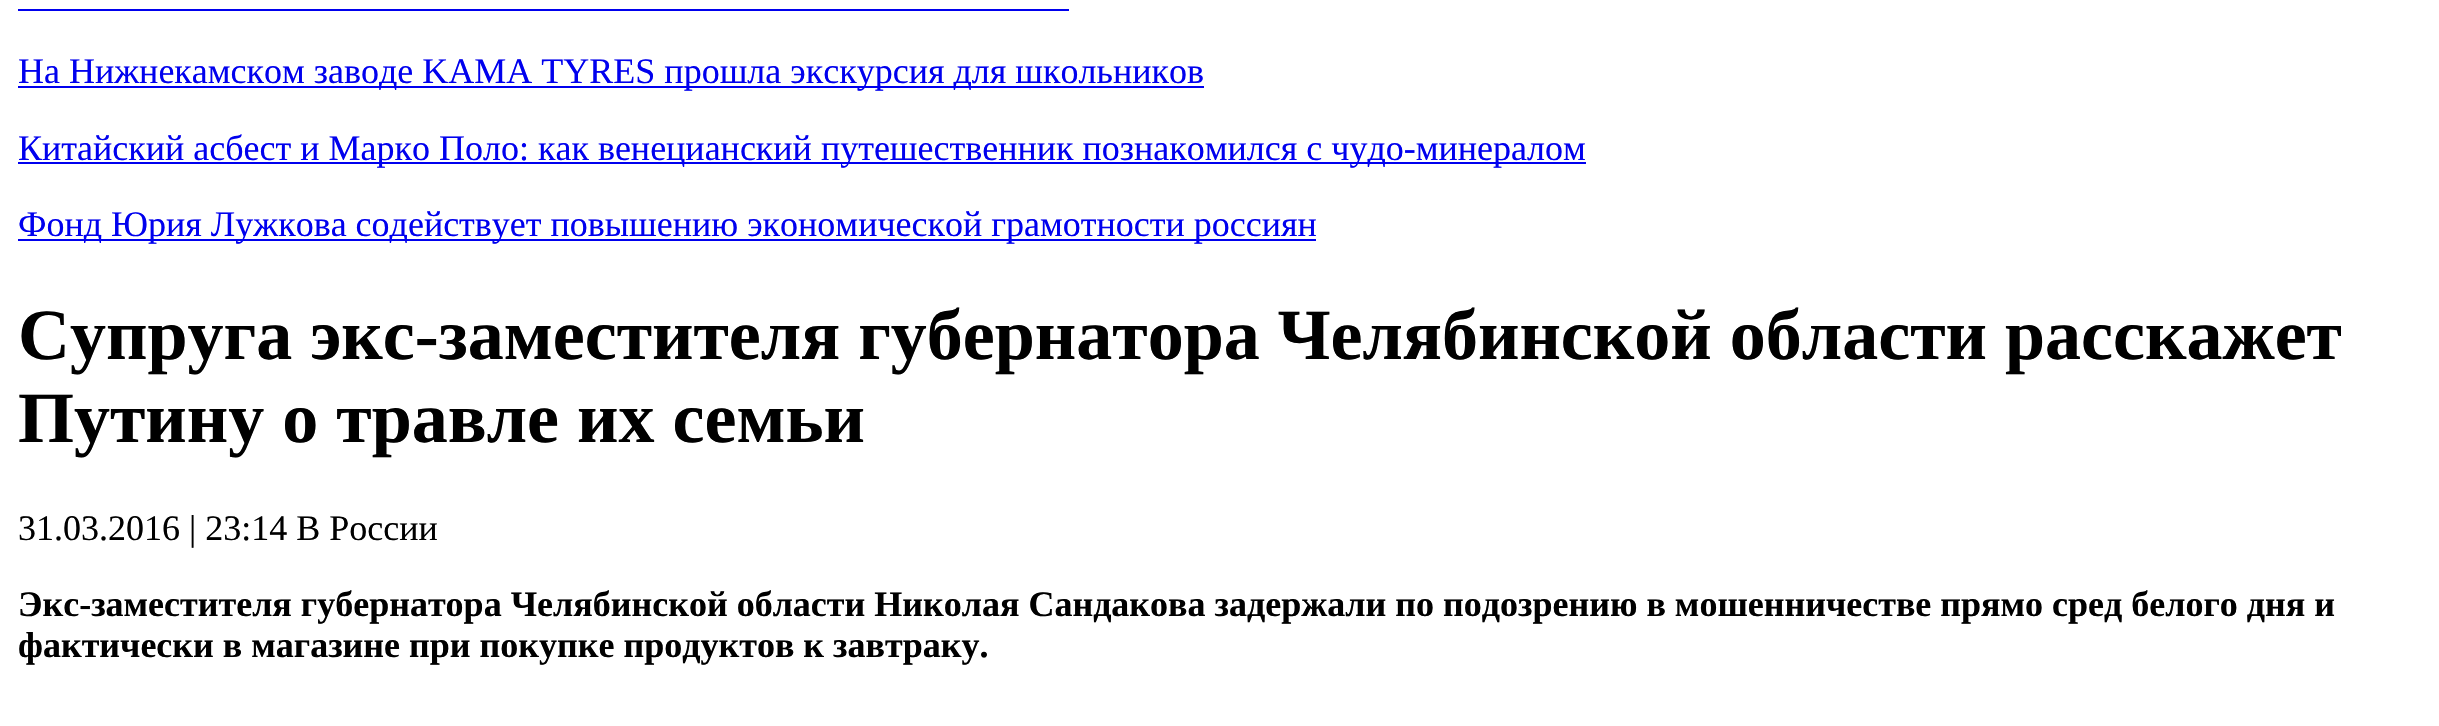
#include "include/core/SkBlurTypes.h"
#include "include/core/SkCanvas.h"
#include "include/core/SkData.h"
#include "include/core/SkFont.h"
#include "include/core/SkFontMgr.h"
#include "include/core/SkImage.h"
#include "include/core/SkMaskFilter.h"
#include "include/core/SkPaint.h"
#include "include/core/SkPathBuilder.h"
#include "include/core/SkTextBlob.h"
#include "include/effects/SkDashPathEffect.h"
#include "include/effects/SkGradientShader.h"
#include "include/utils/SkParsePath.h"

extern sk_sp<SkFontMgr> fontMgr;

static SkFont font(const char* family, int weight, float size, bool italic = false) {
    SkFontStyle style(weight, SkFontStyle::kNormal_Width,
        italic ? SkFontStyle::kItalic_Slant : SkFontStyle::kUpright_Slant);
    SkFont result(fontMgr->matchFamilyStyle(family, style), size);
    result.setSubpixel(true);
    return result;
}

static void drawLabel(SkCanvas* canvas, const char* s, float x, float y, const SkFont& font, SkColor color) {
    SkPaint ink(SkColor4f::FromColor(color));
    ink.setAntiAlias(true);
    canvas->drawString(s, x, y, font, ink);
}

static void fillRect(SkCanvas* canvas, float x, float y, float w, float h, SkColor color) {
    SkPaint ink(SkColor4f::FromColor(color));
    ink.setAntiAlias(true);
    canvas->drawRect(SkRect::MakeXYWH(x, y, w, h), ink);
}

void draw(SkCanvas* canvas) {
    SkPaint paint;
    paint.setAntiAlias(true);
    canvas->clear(0xFFFFFFFF);
    fillRect(canvas, 18, 9, 1051, 2, 0xFF0000EE);
    fillRect(canvas, 18, 86, 1186, 2, 0xFF0000EE);
    SkFont font1 = font("Liberation Serif", 400, 36);
    drawLabel(canvas, "На Нижнекамском заводе KAMA TYRES прошла экскурсия для школьников", 18, 83, font1, 0xFF0000EE);
    fillRect(canvas, 18, 162, 1568, 2, 0xFF0000EE);
    drawLabel(canvas, "Китайский асбест и Марко Поло: как венецианский путешественник познакомился с чудо-минералом", 18, 160, font1, 0xFF0000EE);
    fillRect(canvas, 18, 239, 1298, 2, 0xFF0000EE);
    drawLabel(canvas, "Фонд Юрия Лужкова содействует повышению экономической грамотности россиян", 18, 236, font1, 0xFF0000EE);
    SkFont font2 = font("Liberation Serif", 700, 72);
    drawLabel(canvas, "Супруга экс-заместителя губернатора Челябинской области расскажет", 18, 359, font2, 0xFF000000);
    drawLabel(canvas, "Путину о травле их семьи", 18, 442, font2, 0xFF000000);
    drawLabel(canvas, "31.03.2016 | 23:14 В России", 18, 540, font1, 0xFF000000);
    SkFont font3 = font("Liberation Serif", 700, 36);
    drawLabel(canvas, "Экс-заместителя губернатора Челябинской области Николая Сандакова задержали по подозрению в мошенничестве прямо сред белого дня и", 18, 616, font3, 0xFF000000);
    drawLabel(canvas, "фактически в магазине при покупке продуктов к завтраку.", 18, 657, font3, 0xFF000000);
}
